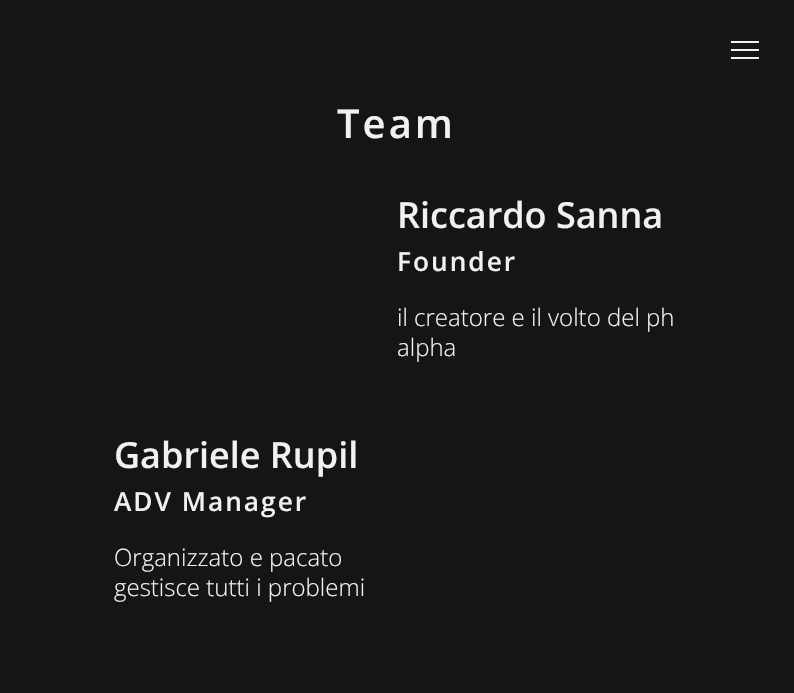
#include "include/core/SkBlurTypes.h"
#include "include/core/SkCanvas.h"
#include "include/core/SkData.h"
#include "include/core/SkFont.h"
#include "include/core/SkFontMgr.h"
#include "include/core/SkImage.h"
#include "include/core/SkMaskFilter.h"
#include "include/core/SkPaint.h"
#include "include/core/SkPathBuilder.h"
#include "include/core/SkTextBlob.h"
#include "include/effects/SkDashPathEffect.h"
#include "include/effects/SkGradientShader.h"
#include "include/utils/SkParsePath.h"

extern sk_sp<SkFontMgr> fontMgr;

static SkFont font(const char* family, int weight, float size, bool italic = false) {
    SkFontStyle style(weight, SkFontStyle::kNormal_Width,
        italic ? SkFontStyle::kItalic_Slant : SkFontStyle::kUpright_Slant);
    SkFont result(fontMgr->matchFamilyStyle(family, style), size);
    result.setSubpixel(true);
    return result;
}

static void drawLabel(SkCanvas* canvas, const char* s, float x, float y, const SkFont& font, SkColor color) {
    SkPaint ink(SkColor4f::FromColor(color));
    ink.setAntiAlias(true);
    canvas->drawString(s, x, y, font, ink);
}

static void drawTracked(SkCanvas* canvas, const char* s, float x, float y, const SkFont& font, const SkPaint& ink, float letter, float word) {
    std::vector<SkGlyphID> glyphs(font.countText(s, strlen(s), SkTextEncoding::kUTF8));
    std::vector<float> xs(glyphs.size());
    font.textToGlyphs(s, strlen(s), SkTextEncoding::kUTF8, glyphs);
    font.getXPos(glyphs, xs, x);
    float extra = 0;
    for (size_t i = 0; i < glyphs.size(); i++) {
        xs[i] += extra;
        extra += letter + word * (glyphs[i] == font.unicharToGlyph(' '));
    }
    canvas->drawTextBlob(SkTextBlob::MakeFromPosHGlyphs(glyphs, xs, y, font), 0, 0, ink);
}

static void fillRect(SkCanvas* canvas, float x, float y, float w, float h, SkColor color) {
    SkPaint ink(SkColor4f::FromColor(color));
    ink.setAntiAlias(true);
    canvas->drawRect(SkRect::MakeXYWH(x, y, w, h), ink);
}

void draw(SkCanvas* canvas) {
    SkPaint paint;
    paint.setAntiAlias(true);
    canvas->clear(0xFF151515);
    fillRect(canvas, 731, 41, 28, 2, 0xFFF1F1F1);
    fillRect(canvas, 731, 49, 28, 2, 0xFFF1F1F1);
    fillRect(canvas, 731, 57, 28, 2, 0xFFF1F1F1);
    SkFont font1 = font("Open Sans", 600, 40);
    paint.setColor(0xFFF1F1F1);
    drawTracked(canvas, "Team", 337, 138, font1, paint, 3, 0);
    SkFont font2 = font("Open Sans", 600, 36);
    drawLabel(canvas, "Riccardo Sanna", 397, 228, font2, 0xFFF1F1F1);
    SkFont font3 = font("Open Sans", 600, 26.25f);
    drawTracked(canvas, "Founder", 397, 271, font3, paint, 2, 0);
    SkFont font4 = font("Open Sans", 300, 24);
    drawLabel(canvas, "il creatore e il volto del ph", 397, 326, font4, 0xFFF1F1F1);
    drawLabel(canvas, "alpha", 397, 356, font4, 0xFFF1F1F1);
    drawLabel(canvas, "Gabriele Rupil", 114, 468, font2, 0xFFF1F1F1);
    drawTracked(canvas, "ADV Manager", 114, 511, font3, paint, 2, 0);
    drawLabel(canvas, "Organizzato e pacato", 114, 566, font4, 0xFFF1F1F1);
    drawLabel(canvas, "gestisce tutti i problemi", 114, 596, font4, 0xFFF1F1F1);
}
